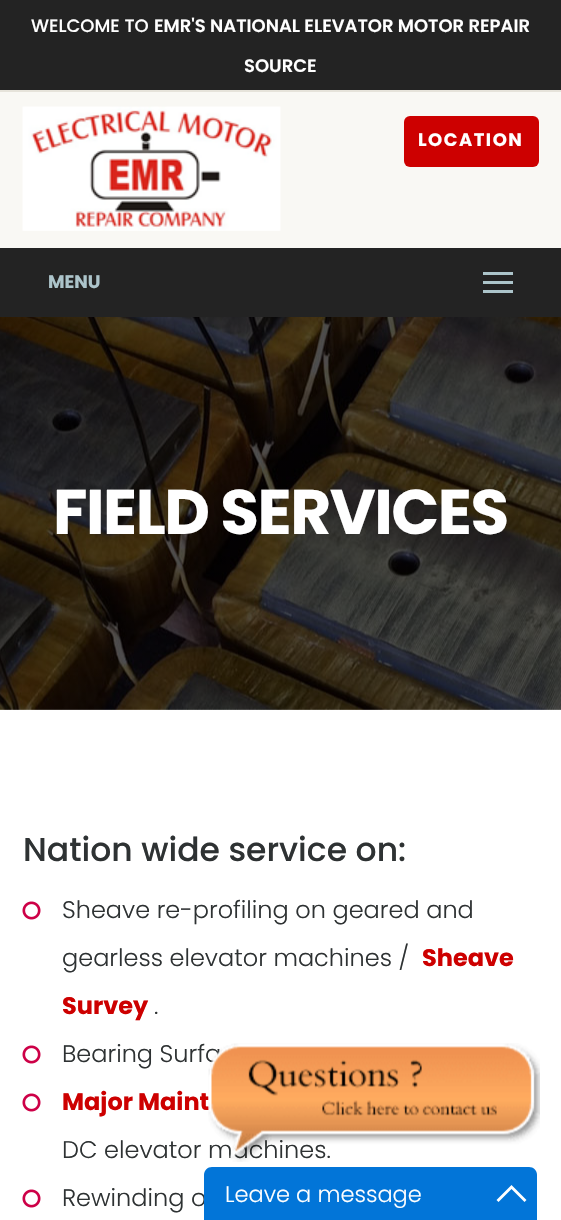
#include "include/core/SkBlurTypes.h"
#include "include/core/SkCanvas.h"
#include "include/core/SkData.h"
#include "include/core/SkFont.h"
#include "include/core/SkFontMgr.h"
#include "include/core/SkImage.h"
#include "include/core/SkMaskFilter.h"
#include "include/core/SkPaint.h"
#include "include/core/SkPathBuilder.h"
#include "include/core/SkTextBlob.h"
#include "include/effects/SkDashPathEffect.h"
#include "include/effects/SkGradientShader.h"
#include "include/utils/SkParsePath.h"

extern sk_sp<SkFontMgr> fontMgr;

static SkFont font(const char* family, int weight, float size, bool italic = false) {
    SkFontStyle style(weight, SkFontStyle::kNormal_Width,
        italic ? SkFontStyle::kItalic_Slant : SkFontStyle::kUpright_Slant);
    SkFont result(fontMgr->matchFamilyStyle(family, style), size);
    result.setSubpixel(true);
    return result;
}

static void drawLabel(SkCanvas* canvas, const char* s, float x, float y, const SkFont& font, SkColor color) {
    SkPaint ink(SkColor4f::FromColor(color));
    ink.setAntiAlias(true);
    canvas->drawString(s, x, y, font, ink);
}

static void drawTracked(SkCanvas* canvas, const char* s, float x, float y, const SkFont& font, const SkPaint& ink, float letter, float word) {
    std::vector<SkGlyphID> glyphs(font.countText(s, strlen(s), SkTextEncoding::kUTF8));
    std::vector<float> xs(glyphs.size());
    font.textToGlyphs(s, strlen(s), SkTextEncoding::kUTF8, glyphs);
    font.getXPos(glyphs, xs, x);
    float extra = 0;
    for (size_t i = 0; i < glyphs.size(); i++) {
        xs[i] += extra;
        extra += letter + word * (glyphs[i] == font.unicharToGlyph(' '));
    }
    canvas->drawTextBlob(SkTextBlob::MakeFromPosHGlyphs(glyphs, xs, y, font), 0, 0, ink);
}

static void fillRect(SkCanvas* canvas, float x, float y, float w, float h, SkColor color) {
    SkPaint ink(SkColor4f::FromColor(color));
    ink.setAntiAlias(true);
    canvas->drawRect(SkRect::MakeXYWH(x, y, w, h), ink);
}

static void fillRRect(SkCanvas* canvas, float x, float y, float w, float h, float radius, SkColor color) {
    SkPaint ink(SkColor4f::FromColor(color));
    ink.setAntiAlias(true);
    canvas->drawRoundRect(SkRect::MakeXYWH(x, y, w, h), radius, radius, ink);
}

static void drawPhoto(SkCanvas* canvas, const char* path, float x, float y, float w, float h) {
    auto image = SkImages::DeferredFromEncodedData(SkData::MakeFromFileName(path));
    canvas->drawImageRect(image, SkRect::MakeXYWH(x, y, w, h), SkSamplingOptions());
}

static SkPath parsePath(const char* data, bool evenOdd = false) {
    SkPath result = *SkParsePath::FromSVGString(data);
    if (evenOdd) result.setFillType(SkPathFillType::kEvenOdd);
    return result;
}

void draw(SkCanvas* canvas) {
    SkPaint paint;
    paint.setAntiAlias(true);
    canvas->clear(0xFFFFFFFF);
    fillRect(canvas, 0, 0, 561, 90, 0xFF232323);
    fillRect(canvas, 0, 90, 561, 2, 0xFFE6E3DA);
    SkFont font1 = font("Poppins", 500, 18);
    drawLabel(canvas, "WELCOME TO", 31, 32, font1, 0xFFFFFFFF);
    SkFont font2 = font("Poppins", 600, 18);
    drawLabel(canvas, "EMR'S NATIONAL ELEVATOR MOTOR REPAIR", 154, 32, font2, 0xFFFFFFFF);
    drawLabel(canvas, "SOURCE", 244, 72, font2, 0xFFFFFFFF);
    fillRect(canvas, 0, 92, 561, 156, 0xFFF9F8F4);
    drawPhoto(canvas, "assets/img1.png", 22, 106, 259, 125);
    fillRRect(canvas, 404, 116, 135, 51, 6, 0xFFCD0000);
    SkFont font3 = font("Poppins", 700, 18);
    paint.setColor(0xFFFFFFFF);
    drawTracked(canvas, "LOCATION", 418, 146, font3, paint, 1.5f, 0);
    fillRect(canvas, 0, 248, 561, 69, 0xFF232323);
    fillRect(canvas, 483, 272, 30, 3, 0xFFACC4CA);
    drawLabel(canvas, "MENU", 48, 288, font3, 0xFFACC4CA);
    fillRect(canvas, 483, 281, 30, 3, 0xFFACC4CA);
    fillRect(canvas, 483, 290, 30, 3, 0xFFACC4CA);
    fillRect(canvas, 0, 709, 561, 1, 0xFF666666);
    drawPhoto(canvas, "assets/img2.png", 0, 317, 561, 393);
    SkFont font4 = font("Poppins", 700, 63);
    drawTracked(canvas, "FIELD SERVICES", 53, 534, font4, paint, -1.5f, 0);
    SkFont font5 = font("Poppins", 500, 33);
    drawLabel(canvas, "Nation wide service on:", 23, 861, font5, 0xFF2E3233);
    drawPhoto(canvas, "assets/img3.png", 22, 901, 19, 19);
    SkFont font6 = font("Poppins", 300, 24);
    drawLabel(canvas, "Sheave re-profiling on geared and", 62, 918, font6, 0xFF2E3233);
    drawLabel(canvas, "gearless elevator machines /", 62, 966, font6, 0xFF2E3233);
    SkFont font7 = font("Poppins", 700, 24);
    drawLabel(canvas, "Sheave", 422, 966, font7, 0xFFCD0000);
    drawLabel(canvas, "Survey", 62, 1014, font7, 0xFFCD0000);
    drawLabel(canvas, ".", 154, 1014, font6, 0xFF2E3233);
    drawPhoto(canvas, "assets/img3.png", 22, 1045, 19, 19);
    drawLabel(canvas, "Bearing Surfa", 62, 1062, font6, 0xFF2E3233);
    drawPhoto(canvas, "assets/img3.png", 22, 1093, 19, 19);
    drawLabel(canvas, "Major Maint", 62, 1110, font7, 0xFFCD0000);
    drawLabel(canvas, "DC elevator machines.", 62, 1158, font6, 0xFF2E3233);
    drawPhoto(canvas, "assets/img3.png", 22, 1189, 19, 19);
    drawLabel(canvas, "Rewinding o", 62, 1206, font6, 0xFF2E3233);
    drawPhoto(canvas, "assets/img4.png", 208, 1043, 332, 119);
    paint.setColor(0xFF0275D8);
    canvas->drawPath(parsePath("M212 1167H529C533.5 1167 537 1170.5 537 1175V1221H204V1175C204 1170.5 207.5 1167 212 1167Z"), paint);
    SkFont font8 = font("Poppins", 300, 22.5f);
    drawLabel(canvas, "Leave a message", 225, 1202, font8, 0xFFFFFFFF);
    paint.setColor(0xFFFFFFFF);
    canvas->drawPath(parsePath("M511.5 1185L526.5 1200L524.5 1202L511.5 1189L498.5 1202L496.5 1200Z"), paint);
}
